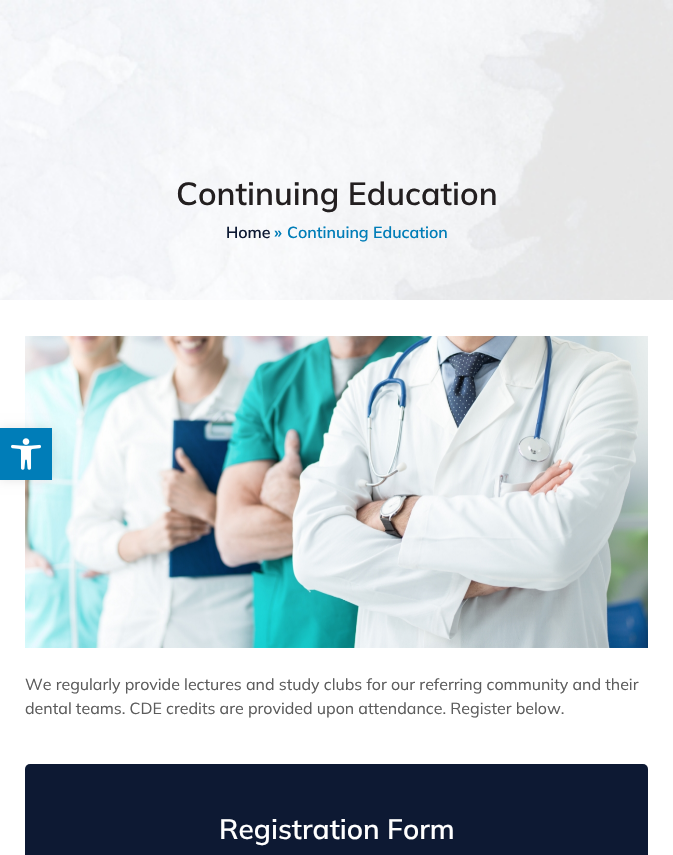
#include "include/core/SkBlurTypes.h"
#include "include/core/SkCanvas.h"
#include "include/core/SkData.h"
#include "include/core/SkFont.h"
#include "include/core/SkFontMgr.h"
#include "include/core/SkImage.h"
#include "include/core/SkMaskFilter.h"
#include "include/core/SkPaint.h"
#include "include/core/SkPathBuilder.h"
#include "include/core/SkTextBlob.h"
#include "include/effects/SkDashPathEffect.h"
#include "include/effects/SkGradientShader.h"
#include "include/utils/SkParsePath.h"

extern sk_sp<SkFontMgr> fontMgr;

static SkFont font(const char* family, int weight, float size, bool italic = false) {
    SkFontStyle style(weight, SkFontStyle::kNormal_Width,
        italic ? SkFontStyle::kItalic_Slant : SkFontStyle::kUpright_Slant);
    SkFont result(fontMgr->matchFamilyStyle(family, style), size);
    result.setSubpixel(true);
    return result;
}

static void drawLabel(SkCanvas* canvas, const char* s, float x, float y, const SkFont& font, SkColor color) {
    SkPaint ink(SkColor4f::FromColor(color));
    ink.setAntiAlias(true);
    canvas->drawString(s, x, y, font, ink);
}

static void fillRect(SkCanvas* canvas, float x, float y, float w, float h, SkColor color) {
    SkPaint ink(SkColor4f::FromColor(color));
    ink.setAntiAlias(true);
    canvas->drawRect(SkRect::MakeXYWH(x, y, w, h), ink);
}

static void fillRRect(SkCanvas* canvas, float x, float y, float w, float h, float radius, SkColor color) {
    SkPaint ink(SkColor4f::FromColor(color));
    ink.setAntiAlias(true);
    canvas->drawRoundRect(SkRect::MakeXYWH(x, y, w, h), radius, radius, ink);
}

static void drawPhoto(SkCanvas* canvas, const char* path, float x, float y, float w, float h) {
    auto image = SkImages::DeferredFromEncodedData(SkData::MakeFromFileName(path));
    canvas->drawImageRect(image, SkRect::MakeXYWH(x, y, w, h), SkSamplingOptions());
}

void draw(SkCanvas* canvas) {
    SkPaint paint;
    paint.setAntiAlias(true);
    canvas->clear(0xFFFFFFFF);
    drawPhoto(canvas, "assets/img1.png", 0, 0, 673, 300);
    SkFont font1 = font("Mulish", 600, 32);
    drawLabel(canvas, "Continuing Education", 176, 205, font1, 0xFF231F20);
    SkFont font2 = font("Mulish", 600, 16);
    drawLabel(canvas, "Home", 226, 238, font2, 0xFF0D1933);
    SkFont font3 = font("Mulish", 700, 16);
    drawLabel(canvas, "»", 274, 238, font3, 0xFF007DB8);
    drawLabel(canvas, "Continuing Education", 287, 238, font2, 0xFF007DB8);
    drawPhoto(canvas, "assets/img2.png", 25, 336, 623, 312);
    SkFont font4 = font("Mulish", 400, 16);
    drawLabel(canvas, "We regularly provide lectures and study clubs for our referring community and their", 25, 690, font4, 0xFF5C5C5C);
    drawLabel(canvas, "dental teams. CDE credits are provided upon attendance. Register below.", 25, 714, font4, 0xFF5C5C5C);
    fillRRect(canvas, 25, 764, 623, 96, 5, 0xFF0D1933);
    SkFont font5 = font("Mulish", 600, 28);
    drawLabel(canvas, "Registration Form", 219, 839, font5, 0xFFFFFFFF);
    paint.setColor(0x1A000000);
    paint.setMaskFilter(SkMaskFilter::MakeBlur(kNormal_SkBlurStyle, 5));
    canvas->drawRect(SkRect::MakeXYWH(0, 428, 52, 52), paint);
    paint.setMaskFilter(nullptr);
    fillRect(canvas, 0, 428, 52, 52, 0xFF007DB8);
    drawPhoto(canvas, "assets/img3.png", 11, 438, 30, 32);
}
